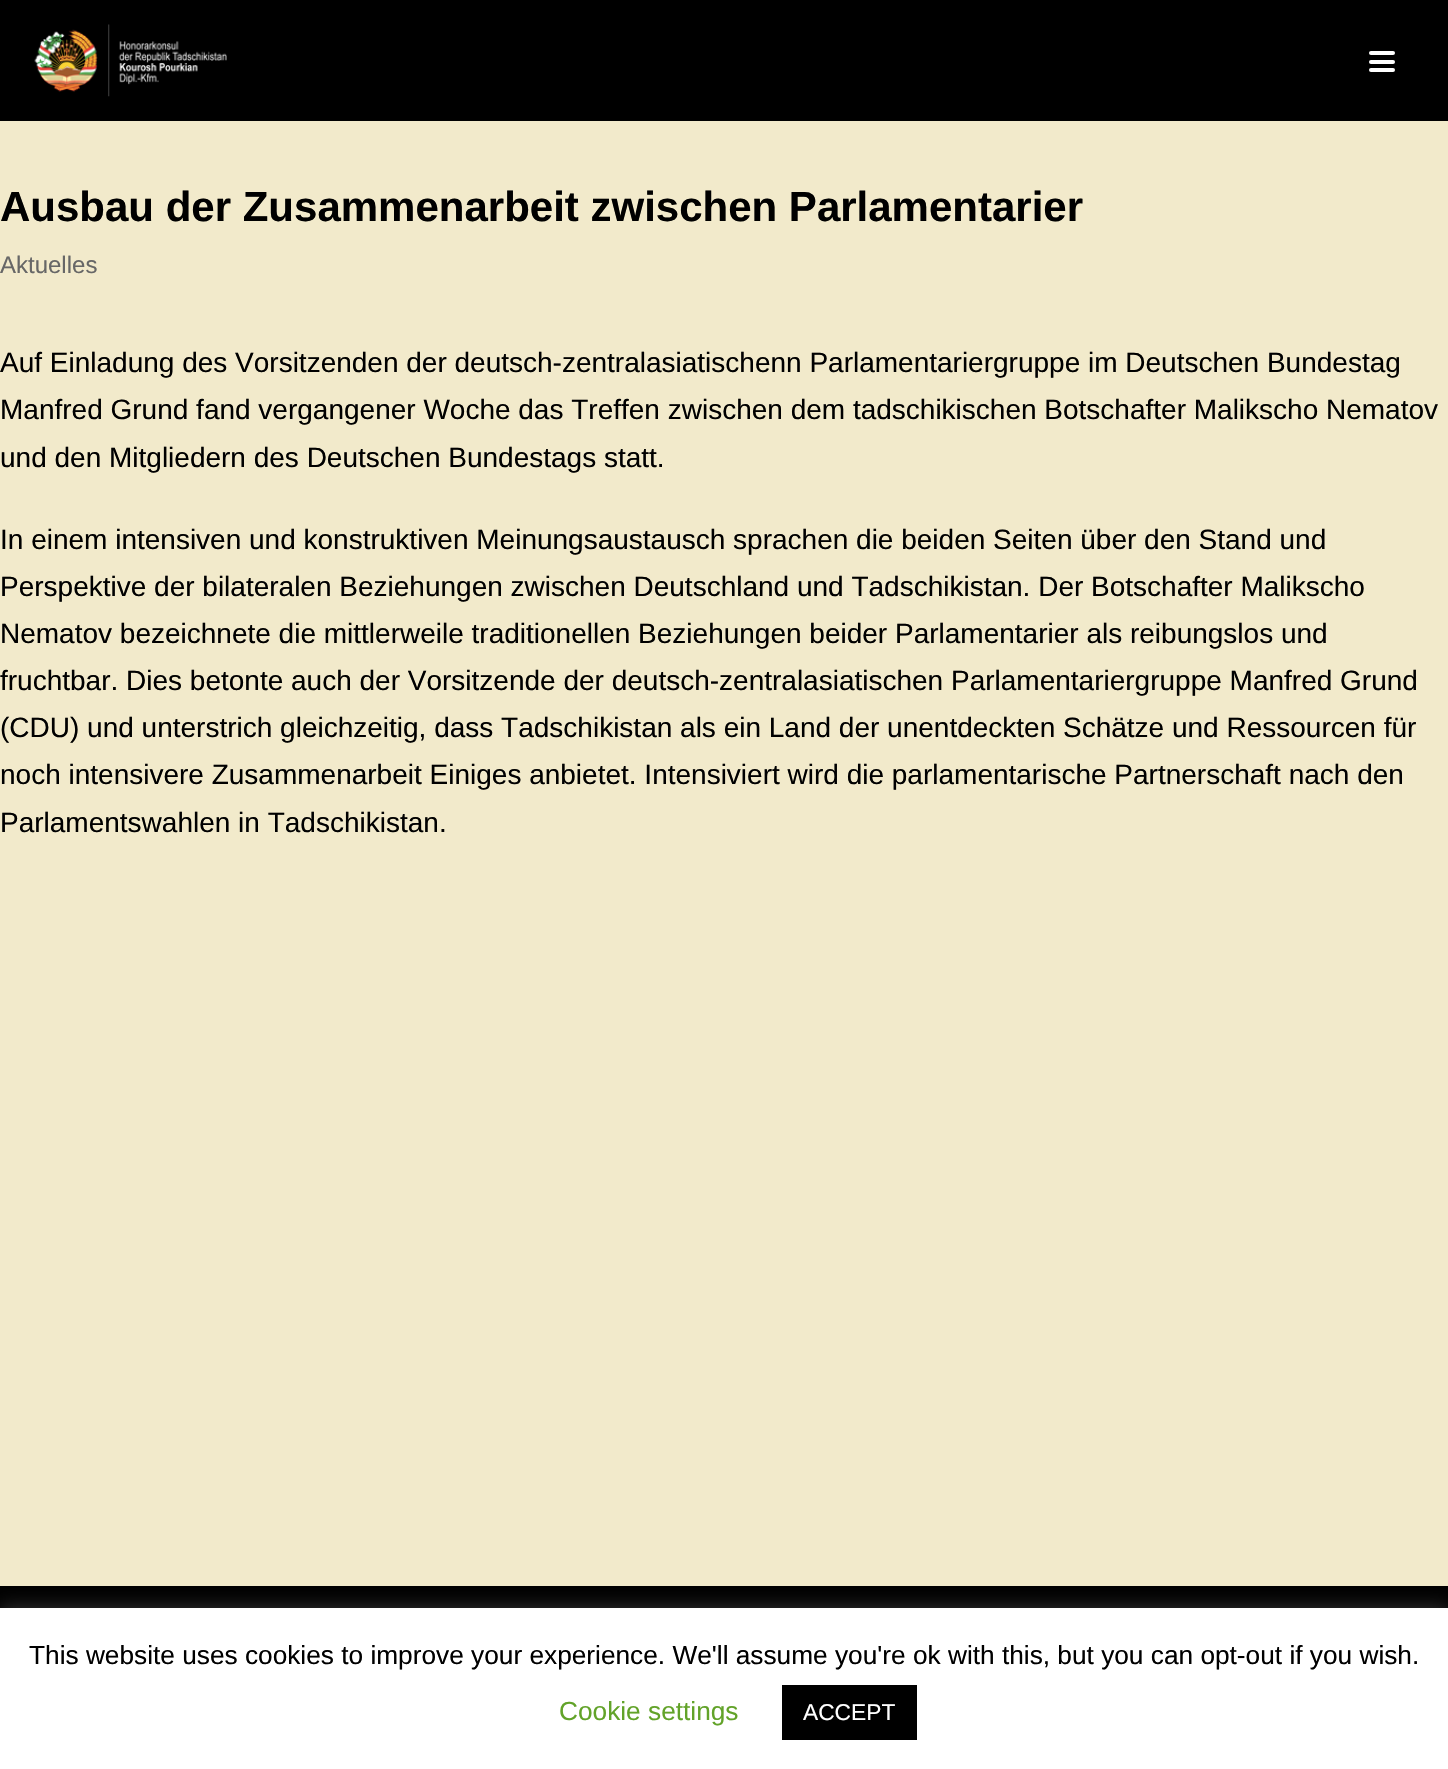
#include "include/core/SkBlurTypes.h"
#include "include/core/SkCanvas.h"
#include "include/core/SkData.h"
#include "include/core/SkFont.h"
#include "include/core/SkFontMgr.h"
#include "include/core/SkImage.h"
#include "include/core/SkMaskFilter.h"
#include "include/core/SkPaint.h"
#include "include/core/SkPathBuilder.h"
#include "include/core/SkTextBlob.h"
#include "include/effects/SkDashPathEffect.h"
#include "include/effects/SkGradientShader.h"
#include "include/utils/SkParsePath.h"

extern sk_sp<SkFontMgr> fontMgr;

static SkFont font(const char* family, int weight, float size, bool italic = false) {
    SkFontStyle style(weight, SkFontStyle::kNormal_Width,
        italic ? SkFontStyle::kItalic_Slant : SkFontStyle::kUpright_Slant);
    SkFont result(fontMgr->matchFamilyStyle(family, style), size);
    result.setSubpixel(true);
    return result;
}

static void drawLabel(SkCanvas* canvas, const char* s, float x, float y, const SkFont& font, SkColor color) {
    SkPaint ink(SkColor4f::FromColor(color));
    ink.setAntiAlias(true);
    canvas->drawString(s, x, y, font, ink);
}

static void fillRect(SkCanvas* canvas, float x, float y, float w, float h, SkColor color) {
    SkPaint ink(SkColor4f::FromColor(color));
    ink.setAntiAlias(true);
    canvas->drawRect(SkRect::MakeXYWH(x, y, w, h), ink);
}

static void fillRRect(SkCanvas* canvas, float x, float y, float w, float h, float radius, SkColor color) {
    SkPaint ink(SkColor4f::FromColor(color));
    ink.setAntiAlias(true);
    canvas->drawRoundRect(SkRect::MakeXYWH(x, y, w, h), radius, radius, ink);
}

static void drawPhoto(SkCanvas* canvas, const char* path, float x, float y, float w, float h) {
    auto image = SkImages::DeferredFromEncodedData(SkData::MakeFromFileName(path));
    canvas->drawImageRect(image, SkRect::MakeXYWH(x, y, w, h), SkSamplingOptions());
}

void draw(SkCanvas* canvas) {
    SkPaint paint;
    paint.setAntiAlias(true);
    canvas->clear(0xFFF2EACB);
    fillRect(canvas, 0, 0, 1448, 121, 0xFF000000);
    drawPhoto(canvas, "assets/img1.png", 34, 24, 193, 73);
    fillRRect(canvas, 1369, 51, 26, 4, 2, 0xFFFFFFFF);
    fillRRect(canvas, 1369, 60, 26, 4, 2, 0xFFFFFFFF);
    fillRRect(canvas, 1369, 68, 26, 4, 2, 0xFFFFFFFF);
    SkFont font1 = font("Liberation Sans", 700, 42);
    drawLabel(canvas, "Ausbau der Zusammenarbeit zwischen Parlamentarier", 0, 221, font1, 0xFF000000);
    SkFont font2 = font("Liberation Sans", 400, 24);
    drawLabel(canvas, "Aktuelles", 0, 273, font2, 0xFF676767);
    SkFont font3 = font("Liberation Sans", 400, 28);
    drawLabel(canvas, "Auf Einladung des Vorsitzenden der deutsch-zentralasiatischenn Parlamentariergruppe im Deutschen Bundestag", 0, 372, font3, 0xFF000000);
    drawLabel(canvas, "Manfred Grund fand vergangener Woche das Treffen zwischen dem tadschikischen Botschafter Malikscho Nematov", 0, 419, font3, 0xFF000000);
    drawLabel(canvas, "und den Mitgliedern des Deutschen Bundestags statt.", 0, 467, font3, 0xFF000000);
    drawLabel(canvas, "In einem intensiven und konstruktiven Meinungsaustausch sprachen die beiden Seiten über den Stand und", 0, 549, font3, 0xFF000000);
    drawLabel(canvas, "Perspektive der bilateralen Beziehungen zwischen Deutschland und Tadschikistan. Der Botschafter Malikscho", 0, 596, font3, 0xFF000000);
    drawLabel(canvas, "Nematov bezeichnete die mittlerweile traditionellen Beziehungen beider Parlamentarier als reibungslos und", 0, 643, font3, 0xFF000000);
    drawLabel(canvas, "fruchtbar. Dies betonte auch der Vorsitzende der deutsch-zentralasiatischen Parlamentariergruppe Manfred Grund", 0, 690, font3, 0xFF000000);
    drawLabel(canvas, "(CDU) und unterstrich gleichzeitig, dass Tadschikistan als ein Land der unentdeckten Schätze und Ressourcen für", 0, 737, font3, 0xFF000000);
    drawLabel(canvas, "noch intensivere Zusammenarbeit Einiges anbietet. Intensiviert wird die parlamentarische Partnerschaft nach den", 0, 784, font3, 0xFF000000);
    drawLabel(canvas, "Parlamentswahlen in Tadschikistan.", 0, 832, font3, 0xFF000000);
    fillRect(canvas, 0, 1586, 1448, 22, 0xFF000000);
    paint.setColor(0x4DACABAB);
    paint.setMaskFilter(SkMaskFilter::MakeBlur(kNormal_SkBlurStyle, 9));
    canvas->drawRect(SkRect::MakeXYWH(0, 1607, 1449, 161), paint);
    paint.setMaskFilter(nullptr);
    fillRect(canvas, 0, 1608, 1448, 161, 0xFFFFFFFF);
    SkFont font4 = font("Liberation Sans", 400, 26.25f);
    drawLabel(canvas, "This website uses cookies to improve your experience. We'll assume you're ok with this, but you can opt-out if you wish.", 29, 1664, font4, 0xFF000000);
    drawLabel(canvas, "Cookie settings", 559, 1720, font4, 0xFF62A329);
    fillRect(canvas, 782, 1685, 135, 55, 0xFF000000);
    SkFont font5 = font("Liberation Sans", 400, 22.75f);
    drawLabel(canvas, "ACCEPT", 803, 1720, font5, 0xFFFFFFFF);
}
